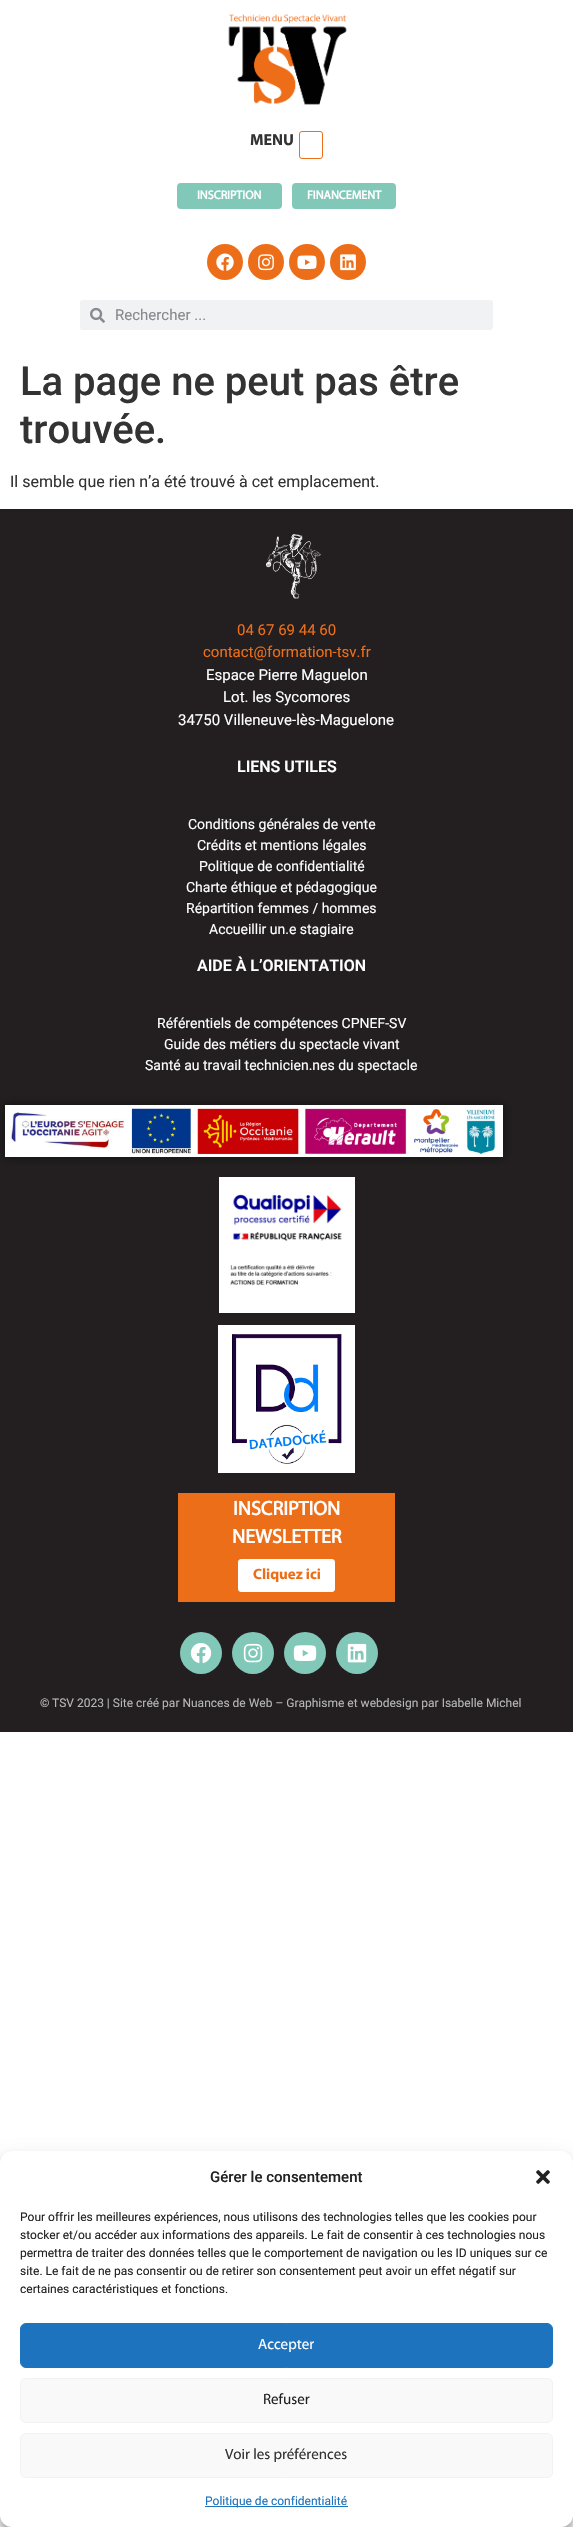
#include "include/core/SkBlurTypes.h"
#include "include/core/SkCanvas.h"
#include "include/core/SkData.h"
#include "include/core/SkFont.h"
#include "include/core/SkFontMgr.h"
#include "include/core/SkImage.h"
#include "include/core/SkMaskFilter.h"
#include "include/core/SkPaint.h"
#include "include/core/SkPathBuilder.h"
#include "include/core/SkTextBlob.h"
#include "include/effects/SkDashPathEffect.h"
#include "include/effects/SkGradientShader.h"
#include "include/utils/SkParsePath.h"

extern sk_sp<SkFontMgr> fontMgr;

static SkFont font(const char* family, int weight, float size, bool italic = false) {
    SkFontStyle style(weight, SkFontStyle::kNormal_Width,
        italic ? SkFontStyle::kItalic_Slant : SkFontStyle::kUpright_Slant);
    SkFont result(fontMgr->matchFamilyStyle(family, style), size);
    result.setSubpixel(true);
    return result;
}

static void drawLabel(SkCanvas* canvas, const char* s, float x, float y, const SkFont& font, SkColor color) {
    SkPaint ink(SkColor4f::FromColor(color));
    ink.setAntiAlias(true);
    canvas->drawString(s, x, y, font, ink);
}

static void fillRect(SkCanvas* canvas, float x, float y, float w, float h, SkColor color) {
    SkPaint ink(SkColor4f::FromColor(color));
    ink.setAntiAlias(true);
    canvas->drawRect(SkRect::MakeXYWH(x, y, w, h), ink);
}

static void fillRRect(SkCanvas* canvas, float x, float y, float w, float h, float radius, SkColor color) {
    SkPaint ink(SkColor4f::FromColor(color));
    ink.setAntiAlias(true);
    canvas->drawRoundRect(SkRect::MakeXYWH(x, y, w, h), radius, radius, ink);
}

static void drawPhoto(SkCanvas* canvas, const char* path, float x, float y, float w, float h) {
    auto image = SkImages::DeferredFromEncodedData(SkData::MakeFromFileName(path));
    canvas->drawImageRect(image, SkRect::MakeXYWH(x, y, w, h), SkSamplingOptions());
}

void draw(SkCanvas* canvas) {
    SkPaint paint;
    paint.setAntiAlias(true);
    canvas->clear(0xFFFFFFFF);
    drawPhoto(canvas, "assets/img1.png", 228, 14, 119, 91);
    SkFont font1 = font("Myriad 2", 700, 16);
    drawLabel(canvas, "MENU", 250, 145, font1, 0xFF333333);
    paint.setStroke(true);
    paint.setStrokeWidth(1);
    paint.setColor(0xFFED6E19);
    canvas->drawRoundRect(SkRect::MakeXYWH(299.5f, 131.5f, 23, 27), 2.5f, 2.5f, paint);
    fillRRect(canvas, 177, 183, 105, 26, 4, 0xFF81C8B9);
    SkFont font2 = font("Myriad", 700, 12);
    drawLabel(canvas, "INSCRIPTION", 197, 199, font2, 0xFFFFFFFF);
    fillRRect(canvas, 292, 183, 104, 26, 4, 0xFF81C8B9);
    drawLabel(canvas, "FINANCEMENT", 307, 199, font2, 0xFFFFFFFF);
    paint.setStroke(false);
    canvas->drawCircle(225, 262, 18, paint);
    drawPhoto(canvas, "assets/img2.png", 216, 253, 18, 18);
    canvas->drawCircle(266, 262, 18, paint);
    drawPhoto(canvas, "assets/img3.png", 258, 254, 16, 17);
    canvas->drawCircle(307, 262, 18, paint);
    drawPhoto(canvas, "assets/img4.png", 297, 255, 20, 14);
    canvas->drawCircle(348, 262, 18, paint);
    drawPhoto(canvas, "assets/img5.png", 340, 254, 16, 17);
    fillRRect(canvas, 80, 300, 413, 30, 3, 0xFFF1F2F3);
    drawPhoto(canvas, "assets/img6.png", 90, 307, 15, 16);
    SkFont font3 = font("Roboto", 400, 15);
    drawLabel(canvas, "Rechercher ...", 115, 320, font3, 0xFF868A8E);
    SkFont font4 = font("Roboto", 500, 40);
    drawLabel(canvas, "La page ne peut pas être", 20, 395, font4, 0xFF333333);
    drawLabel(canvas, "trouvée.", 20, 443, font4, 0xFF333333);
    SkFont font5 = font("Roboto", 400, 16);
    drawLabel(canvas, "Il semble que rien n’a été trouvé à cet emplacement.", 10, 487, font5, 0xFF333333);
    fillRect(canvas, 0, 509, 573, 1223, 0xFF231F20);
    drawPhoto(canvas, "assets/img7.png", 266, 534, 55, 65);
    drawLabel(canvas, "04 67 69 44 60", 237, 635, font3, 0xFFED6E19);
    drawLabel(canvas, "contact@formation-tsv.fr", 203, 657, font3, 0xFFED6E19);
    drawLabel(canvas, "Espace Pierre Maguelon", 206, 680, font3, 0xFFFFFFFF);
    drawLabel(canvas, "Lot. les Sycomores", 223, 702, font3, 0xFFFFFFFF);
    drawLabel(canvas, "34750 Villeneuve-lès-Maguelone", 178, 725, font3, 0xFFFFFFFF);
    SkFont font6 = font("Roboto", 600, 16);
    drawLabel(canvas, "LIENS UTILES", 237, 772, font6, 0xFFFFFFFF);
    SkFont font7 = font("Roboto", 400, 14);
    drawLabel(canvas, "Conditions générales de vente", 188, 829, font7, 0xFFFFFFFF);
    drawLabel(canvas, "Crédits et mentions légales", 197, 850, font7, 0xFFFFFFFF);
    drawLabel(canvas, "Politique de confidentialité", 199, 871, font7, 0xFFFFFFFF);
    drawLabel(canvas, "Charte éthique et pédagogique", 186, 892, font7, 0xFFFFFFFF);
    drawLabel(canvas, "Répartition femmes / hommes", 186, 913, font7, 0xFFFFFFFF);
    drawLabel(canvas, "Accueillir un.e stagiaire", 209, 934, font7, 0xFFFFFFFF);
    drawLabel(canvas, "AIDE À L’ORIENTATION", 197, 971, font6, 0xFFFFFFFF);
    drawLabel(canvas, "Référentiels de compétences CPNEF-SV", 157, 1028, font7, 0xFFFFFFFF);
    drawLabel(canvas, "Guide des métiers du spectacle vivant", 164, 1049, font7, 0xFFFFFFFF);
    drawLabel(canvas, "Santé au travail technicien.nes du spectacle", 145, 1070, font7, 0xFFFFFFFF);
    paint.setColor(0x80000000);
    paint.setMaskFilter(SkMaskFilter::MakeBlur(kNormal_SkBlurStyle, 5));
    canvas->drawRect(SkRect::MakeXYWH(5, 1105, 498, 52), paint);
    paint.setMaskFilter(nullptr);
    drawPhoto(canvas, "assets/img8.png", 5, 1105, 498, 52);
    drawPhoto(canvas, "assets/img9.png", 219, 1177, 136, 136);
    drawPhoto(canvas, "assets/img10.png", 218, 1325, 137, 148);
    fillRect(canvas, 178, 1493, 217, 109, 0xFFED6E19);
    SkFont font8 = font("Myriad", 700, 20);
    drawLabel(canvas, "INSCRIPTION", 233, 1515, font8, 0xFFFFFFFF);
    drawLabel(canvas, "NEWSLETTER", 232, 1543, font8, 0xFFFFFFFF);
    paint.setColor(0xFFFFFFFF);
    canvas->drawRoundRect(SkRect::MakeXYWH(238.5f, 1559.5f, 96, 32), 2.5f, 2.5f, paint);
    paint.setStroke(true);
    canvas->drawRoundRect(SkRect::MakeXYWH(238.5f, 1559.5f, 96, 32), 2.5f, 2.5f, paint);
    SkFont font9 = font("Myriad 2", 700, 15);
    drawLabel(canvas, "Cliquez ici", 253, 1579, font9, 0xFFED6E19);
    paint.setStroke(false);
    paint.setColor(0xFF81C8B9);
    canvas->drawCircle(201, 1653, 21, paint);
    drawPhoto(canvas, "assets/img11.png", 190, 1643, 22, 21);
    canvas->drawCircle(253, 1653, 21, paint);
    drawPhoto(canvas, "assets/img12.png", 243, 1643, 20, 20);
    canvas->drawCircle(305, 1653, 21, paint);
    drawPhoto(canvas, "assets/img13.png", 293, 1645, 24, 16);
    canvas->drawCircle(357, 1653, 21, paint);
    drawPhoto(canvas, "assets/img14.png", 347, 1643, 20, 20);
    SkFont font10 = font("Roboto", 700, 12);
    drawLabel(canvas, "©", 40, 1707, font10, 0xFFB6B6B6);
    SkFont font11 = font("Roboto", 400, 12);
    drawLabel(canvas, "TSV 2023 | Site créé par Nuances de Web – Graphisme et webdesign par Isabelle Michel", 52, 1707, font11, 0xFFB6B6B6);
    paint.setColor(0x3B000000);
    paint.setMaskFilter(SkMaskFilter::MakeBlur(kNormal_SkBlurStyle, 3));
    canvas->drawRoundRect(SkRect::MakeXYWH(0, 2157, 573, 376), 12, 12, paint);
    paint.setMaskFilter(nullptr);
    paint.setColor(0x30000000);
    paint.setMaskFilter(SkMaskFilter::MakeBlur(kNormal_SkBlurStyle, 10));
    canvas->drawRoundRect(SkRect::MakeXYWH(0, 2161, 573, 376), 12, 12, paint);
    paint.setMaskFilter(nullptr);
    fillRRect(canvas, 0, 2151, 573, 376, 12, 0xFFFFFFFF);
    SkFont font12 = font("Roboto", 500, 15);
    drawLabel(canvas, "Gérer le consentement", 210, 2182, font12, 0xFF222222);
    drawPhoto(canvas, "assets/img15.png", 536, 2170, 14, 14);
    drawLabel(canvas, "Pour offrir les meilleures expériences, nous utilisons des technologies telles que les cookies pour", 20, 2221, font11, 0xFF222222);
    drawLabel(canvas, "stocker et/ou accéder aux informations des appareils. Le fait de consentir à ces technologies nous", 20, 2239, font11, 0xFF222222);
    drawLabel(canvas, "permettra de traiter des données telles que le comportement de navigation ou les ID uniques sur ce", 20, 2257, font11, 0xFF222222);
    drawLabel(canvas, "site. Le fait de ne pas consentir ou de retirer son consentement peut avoir un effet négatif sur", 20, 2275, font11, 0xFF222222);
    drawLabel(canvas, "certaines caractéristiques et fonctions.", 20, 2293, font11, 0xFF222222);
    paint.setColor(0xFF1E73BE);
    canvas->drawRoundRect(SkRect::MakeXYWH(20.5f, 2323.5f, 532, 44), 5.5f, 5.5f, paint);
    paint.setStroke(true);
    canvas->drawRoundRect(SkRect::MakeXYWH(20.5f, 2323.5f, 532, 44), 5.5f, 5.5f, paint);
    SkFont font13 = font("Myriad", 400, 15);
    drawLabel(canvas, "Accepter", 258, 2349, font13, 0xFFFFFFFF);
    paint.setStroke(false);
    paint.setColor(0xFFF9F9F9);
    canvas->drawRoundRect(SkRect::MakeXYWH(20.5f, 2378.5f, 532, 44), 5.5f, 5.5f, paint);
    paint.setStroke(true);
    paint.setColor(0xFFF2F2F2);
    canvas->drawRoundRect(SkRect::MakeXYWH(20.5f, 2378.5f, 532, 44), 5.5f, 5.5f, paint);
    drawLabel(canvas, "Refuser", 263, 2404, font13, 0xFF222222);
    paint.setStroke(false);
    paint.setColor(0xFFF9F9F9);
    canvas->drawRoundRect(SkRect::MakeXYWH(20.5f, 2433.5f, 532, 44), 5.5f, 5.5f, paint);
    paint.setStroke(true);
    paint.setColor(0xFFF2F2F2);
    canvas->drawRoundRect(SkRect::MakeXYWH(20.5f, 2433.5f, 532, 44), 5.5f, 5.5f, paint);
    drawLabel(canvas, "Voir les préférences", 225, 2459, font13, 0xFF333333);
    fillRect(canvas, 205, 2506, 143, 1, 0xFF1E73BE);
    drawLabel(canvas, "Politique de confidentialité", 205, 2505, font11, 0xFF1E73BE);
}
